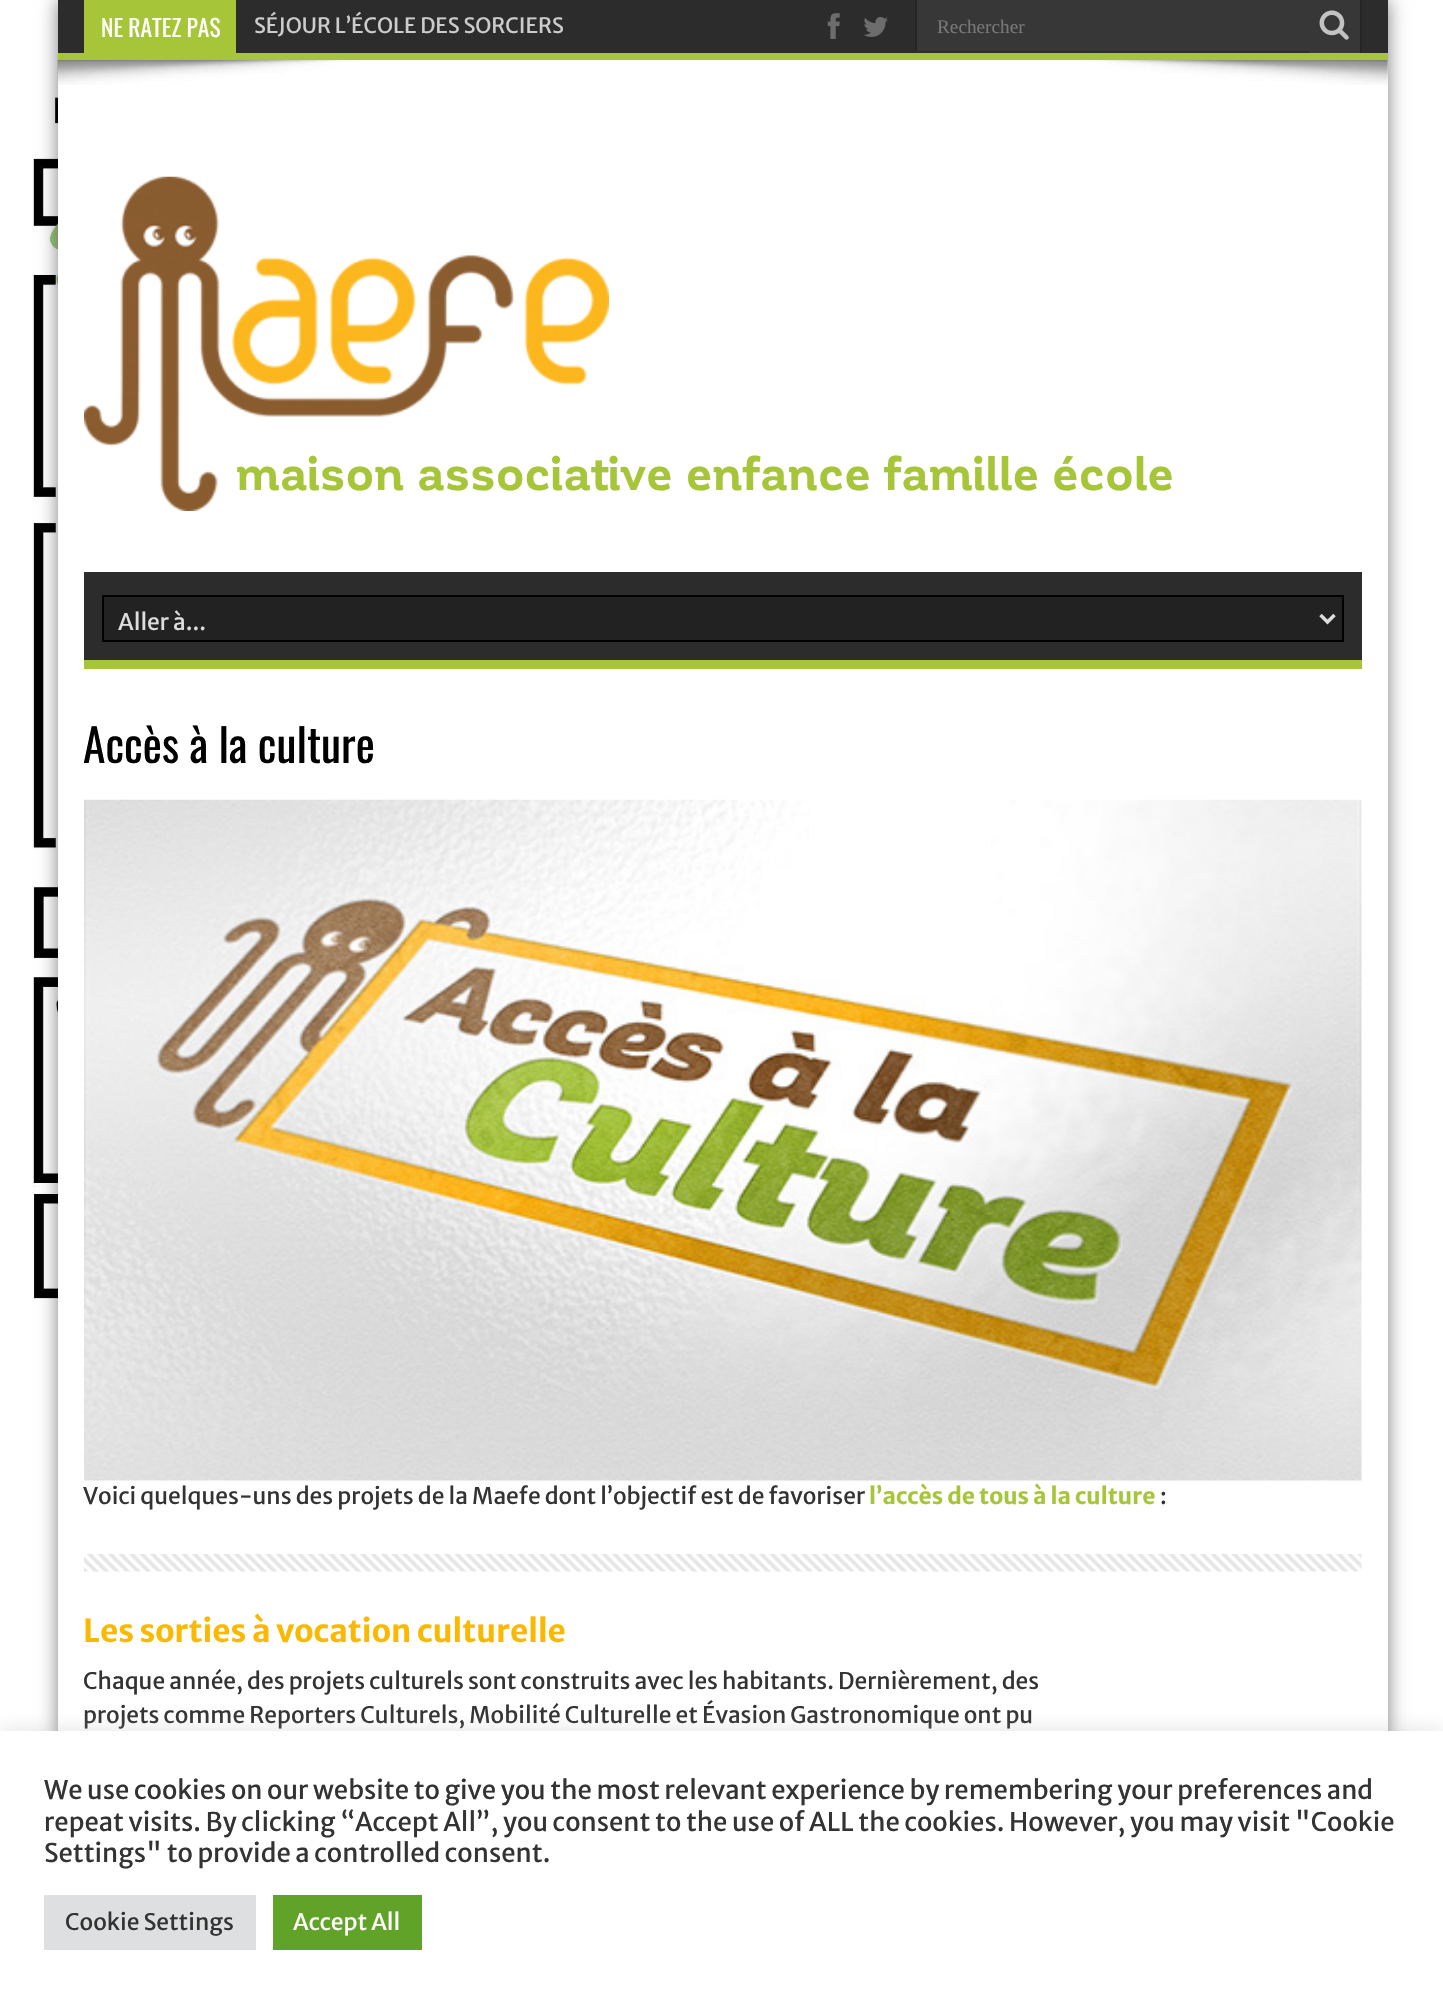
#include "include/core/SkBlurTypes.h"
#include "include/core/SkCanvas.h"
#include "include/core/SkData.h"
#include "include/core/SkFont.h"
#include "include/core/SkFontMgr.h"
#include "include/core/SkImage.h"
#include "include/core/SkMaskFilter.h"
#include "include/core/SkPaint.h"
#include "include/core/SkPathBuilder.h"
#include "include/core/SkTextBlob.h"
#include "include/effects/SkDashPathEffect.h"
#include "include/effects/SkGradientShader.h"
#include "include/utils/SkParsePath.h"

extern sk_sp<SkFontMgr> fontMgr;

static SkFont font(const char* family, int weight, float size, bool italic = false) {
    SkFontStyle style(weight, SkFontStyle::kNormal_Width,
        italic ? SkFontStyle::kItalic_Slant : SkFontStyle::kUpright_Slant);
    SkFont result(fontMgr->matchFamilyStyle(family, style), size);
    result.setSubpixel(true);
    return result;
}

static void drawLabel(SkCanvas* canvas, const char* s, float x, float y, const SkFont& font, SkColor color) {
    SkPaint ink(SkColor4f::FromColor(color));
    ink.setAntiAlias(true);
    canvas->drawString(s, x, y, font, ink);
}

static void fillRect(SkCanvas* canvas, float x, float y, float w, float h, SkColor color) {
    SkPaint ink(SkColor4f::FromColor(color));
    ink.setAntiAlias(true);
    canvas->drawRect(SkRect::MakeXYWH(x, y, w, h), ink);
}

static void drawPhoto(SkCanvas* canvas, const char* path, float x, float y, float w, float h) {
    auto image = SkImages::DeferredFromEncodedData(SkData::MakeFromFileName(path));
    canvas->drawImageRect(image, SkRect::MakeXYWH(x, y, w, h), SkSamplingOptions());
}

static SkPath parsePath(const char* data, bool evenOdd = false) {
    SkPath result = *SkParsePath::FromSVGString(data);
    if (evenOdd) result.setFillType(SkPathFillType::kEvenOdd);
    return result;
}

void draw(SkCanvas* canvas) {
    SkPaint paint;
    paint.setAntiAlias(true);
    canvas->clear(0xFFFFFFFF);
    drawPhoto(canvas, "assets/img1.png", 32, 96, 26, 1237);
    paint.setColor(0x80000000);
    paint.setMaskFilter(SkMaskFilter::MakeBlur(kNormal_SkBlurStyle, 9));
    canvas->drawRect(SkRect::MakeXYWH(58, 0, 1330, 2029), paint);
    paint.setMaskFilter(nullptr);
    fillRect(canvas, 58, 60, 1330, 1671, 0xFFFFFFFF);
    fillRect(canvas, 58, 0, 1330, 53, 0xFF2C2C2C);
    drawPhoto(canvas, "assets/img5.png", 57, 59, 1331, 26);
    fillRect(canvas, 58, 53, 1330, 7, 0xFFA6C539);
    fillRect(canvas, 84, 0, 152, 53, 0xFFA6C539);
    SkFont font1 = font("Oswald", 400, 23.5f);
    drawLabel(canvas, "NE RATEZ PAS", 101, 37, font1, 0xFFFFFFFF);
    SkFont font2 = font("Merriweather Sans", 400, 21);
    drawLabel(canvas, "SÉJOUR L’ÉCOLE DES SORCIERS", 254, 33, font2, 0xFFCCCCCC);
    drawPhoto(canvas, "assets/img2.png", 827, 13, 13, 26);
    drawPhoto(canvas, "assets/img3.png", 863, 17, 25, 20);
    fillRect(canvas, 917, 0, 392, 51, 0xFF373737);
    fillRect(canvas, 915, 0, 2, 51, 0xFF252525);
    SkFont font3 = font("Liberation Serif", 400, 19.25f);
    drawLabel(canvas, "Rechercher", 937, 33, font3, 0xFF787878);
    fillRect(canvas, 1309, 0, 51, 53, 0xFF373737);
    fillRect(canvas, 1360, 0, 2, 53, 0xFF252525);
    drawPhoto(canvas, "assets/img4.png", 1319, 10, 30, 30);
    drawPhoto(canvas, "assets/img6.png", 84, 176, 525, 335);
    SkFont font4 = font("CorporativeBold", 700, 47.75f);
    drawLabel(canvas, "maison associative enfance famille école", 236, 490, font4, 0xFFA6C539);
    fillRect(canvas, 84, 572, 1278, 88, 0xFF2C2C2C);
    fillRect(canvas, 84, 660, 1278, 9, 0xFFA6C539);
    paint.setColor(0xFF222222);
    canvas->drawRect(SkRect::MakeXYWH(103, 596, 1240, 45), paint);
    paint.setStroke(true);
    paint.setStrokeWidth(2);
    paint.setColor(0xFF000000);
    canvas->drawRect(SkRect::MakeXYWH(103, 596, 1240, 45), paint);
    paint.setStrokeWidth(3.5f);
    paint.setColor(0xFFDDDDDD);
    canvas->drawPath(parsePath("M1320.5 615L1327.5 622L1334.5 615"), paint);
    SkFont font5 = font("Merriweather Sans", 400, 22.75f);
    drawLabel(canvas, "Aller à...", 118, 630, font5, 0xFFDDDDDD);
    SkFont font6 = font("Oswald", 400, 45.5f);
    drawLabel(canvas, "Accès à la culture", 83, 763, font6, 0xFF000000);
    drawPhoto(canvas, "assets/img7.png", 84, 799, 1278, 682);
    drawLabel(canvas, "Voici quelques-uns des projets de la Maefe dont l’objectif est de favoriser", 83, 1504, font5, 0xFF333333);
    SkFont font7 = font("Merriweather Sans", 700, 22.75f);
    drawLabel(canvas, "l’accès de tous à la culture", 869, 1504, font7, 0xFFA6C539);
    drawLabel(canvas, ":", 1160, 1504, font5, 0xFF333333);
    drawPhoto(canvas, "assets/img8.png", 84, 1554, 1278, 18);
    SkFont font8 = font("Merriweather Sans", 700, 31.5f);
    drawLabel(canvas, "Les sorties à vocation culturelle", 83, 1642, font8, 0xFFF9B900);
    drawLabel(canvas, "Chaque année, des projets culturels sont construits avec les habitants. Dernièrement, des", 83, 1689, font5, 0xFF333333);
    drawLabel(canvas, "projets comme Reporters Culturels, Mobilité Culturelle et Évasion Gastronomique ont pu", 83, 1723, font5, 0xFF333333);
    paint.setStroke(false);
    paint.setColor(0x4DACABAB);
    paint.setMaskFilter(SkMaskFilter::MakeBlur(kNormal_SkBlurStyle, 9));
    canvas->drawRect(SkRect::MakeXYWH(0, 1729, 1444, 271), paint);
    paint.setMaskFilter(nullptr);
    fillRect(canvas, 0, 1731, 1443, 271, 0xFFFFFFFF);
    SkFont font9 = font("Merriweather Sans", 400, 25.67f);
    drawLabel(canvas, "We use cookies on our website to give you the most relevant experience by remembering your preferences and", 44, 1799, font9, 0xFF333333);
    drawLabel(canvas, "repeat visits. By clicking “Accept All”, you consent to the use of ALL the cookies. However, you may visit \"Cookie", 44, 1831, font9, 0xFF333333);
    drawLabel(canvas, "Settings\" to provide a controlled consent.", 44, 1862, font9, 0xFF333333);
    fillRect(canvas, 44, 1895, 212, 55, 0xFFDEDFE0);
    drawLabel(canvas, "Cookie Settings", 65, 1930, font5, 0xFF333333);
    fillRect(canvas, 273, 1895, 149, 55, 0xFF61A229);
    drawLabel(canvas, "Accept All", 293, 1930, font5, 0xFFFFFFFF);
}
